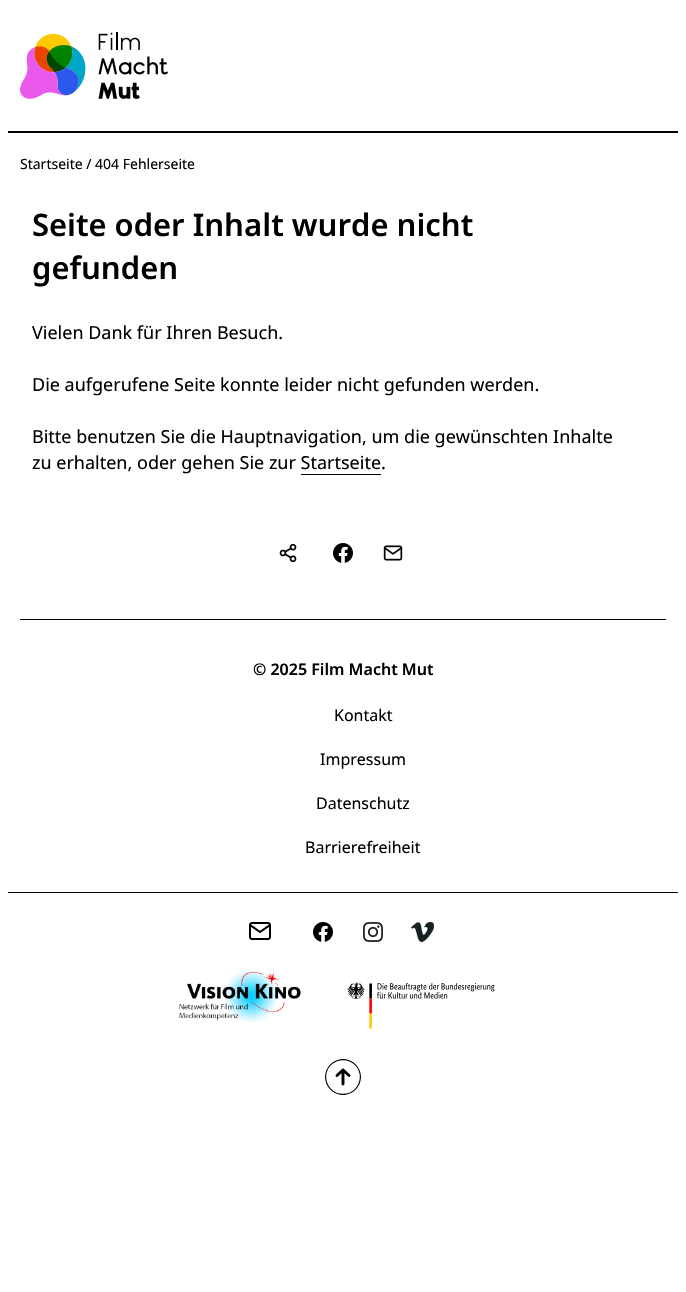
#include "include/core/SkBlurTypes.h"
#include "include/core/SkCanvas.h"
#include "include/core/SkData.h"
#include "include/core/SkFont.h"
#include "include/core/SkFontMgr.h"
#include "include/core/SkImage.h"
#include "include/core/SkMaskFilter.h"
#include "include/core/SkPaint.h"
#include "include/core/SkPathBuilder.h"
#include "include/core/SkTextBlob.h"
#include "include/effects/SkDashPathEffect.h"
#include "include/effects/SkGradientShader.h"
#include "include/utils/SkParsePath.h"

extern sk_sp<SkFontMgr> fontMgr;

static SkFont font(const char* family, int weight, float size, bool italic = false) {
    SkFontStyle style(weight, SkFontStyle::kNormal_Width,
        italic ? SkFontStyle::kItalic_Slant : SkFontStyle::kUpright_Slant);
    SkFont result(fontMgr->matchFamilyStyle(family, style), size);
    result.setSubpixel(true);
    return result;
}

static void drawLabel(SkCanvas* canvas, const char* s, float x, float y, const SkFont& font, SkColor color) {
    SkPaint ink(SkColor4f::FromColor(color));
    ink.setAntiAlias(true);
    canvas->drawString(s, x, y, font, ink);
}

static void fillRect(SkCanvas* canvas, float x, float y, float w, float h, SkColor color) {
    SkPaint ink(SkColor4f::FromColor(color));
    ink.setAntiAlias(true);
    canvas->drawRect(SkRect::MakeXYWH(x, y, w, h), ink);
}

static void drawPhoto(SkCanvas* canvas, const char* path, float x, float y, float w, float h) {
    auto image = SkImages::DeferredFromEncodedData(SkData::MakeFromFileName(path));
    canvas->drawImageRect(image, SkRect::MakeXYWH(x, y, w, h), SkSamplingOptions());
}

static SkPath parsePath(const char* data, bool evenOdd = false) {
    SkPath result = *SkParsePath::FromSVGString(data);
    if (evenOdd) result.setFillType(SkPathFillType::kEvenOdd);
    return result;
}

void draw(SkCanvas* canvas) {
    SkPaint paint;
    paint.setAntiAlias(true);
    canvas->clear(0xFFFFFFFF);
    fillRect(canvas, 8, 131, 670, 2, 0xFF000000);
    drawPhoto(canvas, "assets/img1.png", 20, 32, 148, 67);
    SkFont font1 = font("Noto Sans", 400, 14);
    drawLabel(canvas, "Startseite / 404 Fehlerseite", 20, 169, font1, 0xFF000000);
    SkFont font2 = font("Noto Sans", 600, 31);
    drawLabel(canvas, "Seite oder Inhalt wurde nicht", 32, 236, font2, 0xFF000000);
    drawLabel(canvas, "gefunden", 32, 279, font2, 0xFF000000);
    SkFont font3 = font("Noto Sans", 400, 18);
    drawLabel(canvas, "Vielen Dank für Ihren Besuch.", 32, 339, font3, 0xFF000000);
    drawLabel(canvas, "Die aufgerufene Seite konnte leider nicht gefunden werden.", 32, 391, font3, 0xFF000000);
    drawLabel(canvas, "Bitte benutzen Sie die Hauptnavigation, um die gewünschten Inhalte", 32, 443, font3, 0xFF000000);
    drawLabel(canvas, "zu erhalten, oder gehen Sie zur Startseite", 32, 469, font3, 0xFF000000);
    drawLabel(canvas, ".", 381, 469, font3, 0xFF000000);
    fillRect(canvas, 301, 474, 80, 1, 0xFF000000);
    fillRect(canvas, 8, 892, 670, 1, 0xFF000000);
    fillRect(canvas, 20, 619, 646, 1, 0xFF000000);
    drawPhoto(canvas, "assets/img2.png", 279, 543, 18, 20);
    drawPhoto(canvas, "assets/img3.png", 333, 543, 20, 20);
    drawPhoto(canvas, "assets/img4.png", 383, 545, 20, 16);
    SkFont font4 = font("Noto Sans", 600, 16);
    drawLabel(canvas, "© 2025 Film Macht Mut", 253, 675, font4, 0xFF000000);
    SkFont font5 = font("Noto Sans", 400, 16);
    drawLabel(canvas, "Kontakt", 334, 721, font5, 0xFF000000);
    drawLabel(canvas, "Impressum", 320, 765, font5, 0xFF000000);
    drawLabel(canvas, "Datenschutz", 316, 809, font5, 0xFF000000);
    drawLabel(canvas, "Barrierefreiheit", 305, 853, font5, 0xFF000000);
    drawPhoto(canvas, "assets/img5.png", 249, 922, 22, 18);
    drawPhoto(canvas, "assets/img3.png", 313, 922, 20, 20);
    drawPhoto(canvas, "assets/img6.png", 363, 922, 20, 20);
    drawPhoto(canvas, "assets/img7.png", 411, 922, 24, 20);
    drawPhoto(canvas, "assets/img8.png", 179, 969, 122, 54);
    drawPhoto(canvas, "assets/img9.png", 347, 982, 148, 47);
    canvas->save();
    canvas->clipPath(parsePath("M343 1059C353 1059 361 1067 361 1077C361 1087 353 1095 343 1095C333 1095 325 1087 325 1077C325 1067 333 1059 343 1059Z"), true);
    paint.setStroke(true);
    paint.setStrokeWidth(1.4f);
    paint.setColor(0xFF000000);
    canvas->drawCircle(343, 1077, 17.5f, paint);
    canvas->restore();
    paint.setStrokeWidth(2.9f);
    paint.setStrokeCap(SkPaint::kRound_Cap);
    paint.setStrokeJoin(SkPaint::kRound_Join);
    canvas->drawPath(parsePath("M349 1075.5L343 1070L337 1075.5M343 1084V1070"), paint);
}
